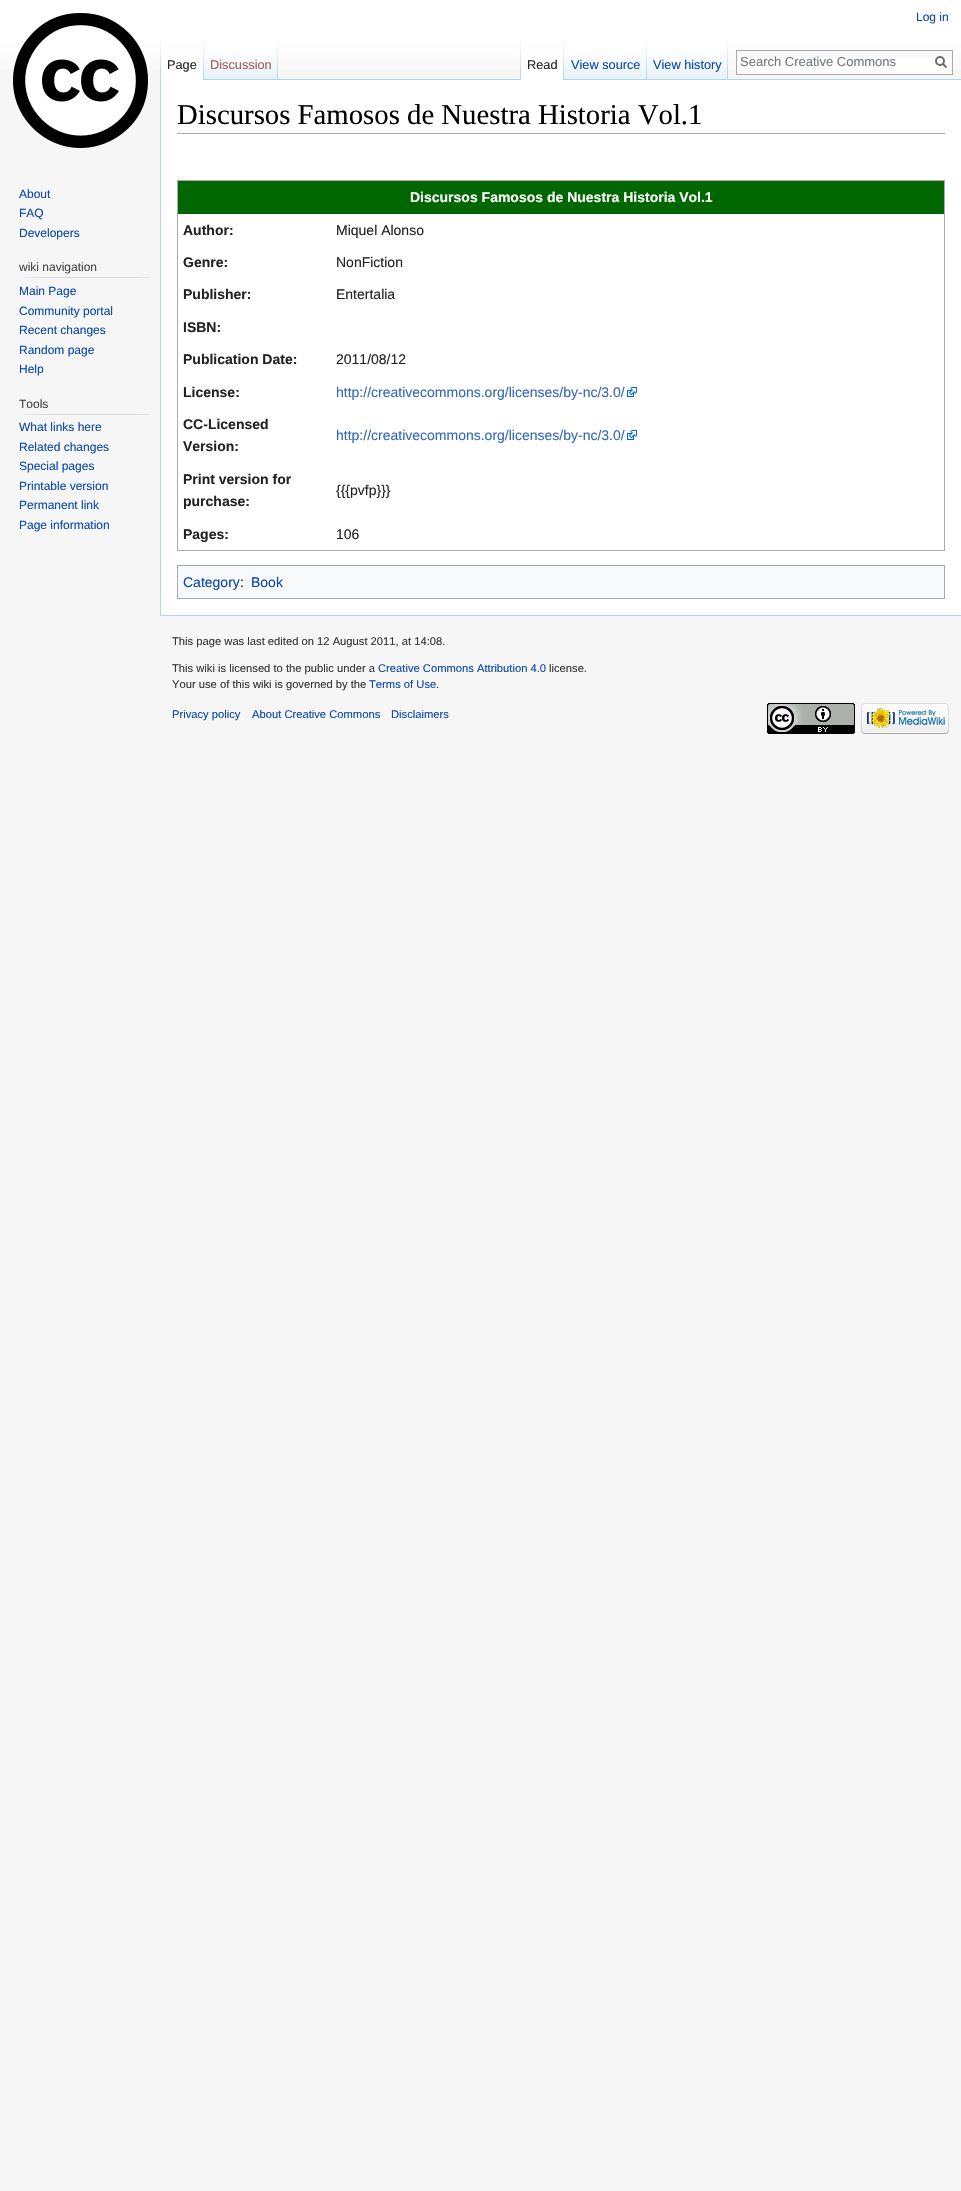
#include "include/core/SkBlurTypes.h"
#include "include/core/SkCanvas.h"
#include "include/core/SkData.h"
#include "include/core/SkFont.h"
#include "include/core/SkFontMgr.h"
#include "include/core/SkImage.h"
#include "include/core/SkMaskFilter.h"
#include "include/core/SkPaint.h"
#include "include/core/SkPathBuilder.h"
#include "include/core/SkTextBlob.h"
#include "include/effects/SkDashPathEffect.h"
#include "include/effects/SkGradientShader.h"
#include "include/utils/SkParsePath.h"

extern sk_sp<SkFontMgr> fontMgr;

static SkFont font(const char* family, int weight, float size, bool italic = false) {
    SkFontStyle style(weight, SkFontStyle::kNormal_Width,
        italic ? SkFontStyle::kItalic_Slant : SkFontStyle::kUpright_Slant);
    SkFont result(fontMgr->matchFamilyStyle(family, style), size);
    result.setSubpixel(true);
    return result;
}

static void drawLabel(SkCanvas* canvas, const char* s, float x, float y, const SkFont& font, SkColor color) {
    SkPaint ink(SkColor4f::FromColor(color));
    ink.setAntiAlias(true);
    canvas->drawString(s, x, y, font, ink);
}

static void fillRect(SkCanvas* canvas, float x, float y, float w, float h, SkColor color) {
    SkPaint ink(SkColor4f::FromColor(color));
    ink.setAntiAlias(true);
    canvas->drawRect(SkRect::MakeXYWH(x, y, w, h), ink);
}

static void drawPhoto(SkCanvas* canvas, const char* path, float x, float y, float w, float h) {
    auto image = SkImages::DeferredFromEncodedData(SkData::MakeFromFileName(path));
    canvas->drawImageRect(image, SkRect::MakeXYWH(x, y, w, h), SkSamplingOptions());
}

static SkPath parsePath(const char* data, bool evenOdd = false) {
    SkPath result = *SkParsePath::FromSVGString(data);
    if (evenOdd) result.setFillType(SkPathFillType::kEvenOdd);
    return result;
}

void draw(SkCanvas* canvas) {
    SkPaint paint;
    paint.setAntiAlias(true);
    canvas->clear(0xFFF6F6F6);
    {
        const SkColor colors[] = {0xFFFFFFFF, 0xFFF6F6F6};
        const float stops[] = {0.5f, 1};
        const SkPoint ends[] = {{481, 0}, {481, 80}};
        paint.setShader(SkGradientShader::MakeLinear(ends, colors, stops, 2, SkTileMode::kClamp));
        paint.setAlpha(255);
    }
    canvas->drawRect(SkRect::MakeXYWH(0, 0, 961, 69), paint);
    SkFont font1 = font("Liberation Sans", 400, 12);
    drawLabel(canvas, "Log in", 916, 21, font1, 0xFF0645AD);
    drawPhoto(canvas, "assets/img1.png", 160, 40, 1, 39);
    fillRect(canvas, 161, 51, 42, 29, 0xFFFFFFFF);
    drawPhoto(canvas, "assets/img2.png", 203, 40, 1, 40);
    SkFont font2 = font("Liberation Sans", 400, 12.75f);
    drawLabel(canvas, "Page", 167, 69, font2, 0xFF222222);
    drawPhoto(canvas, "assets/img3.png", 204, 40, 74, 40);
    drawPhoto(canvas, "assets/img1.png", 277, 40, 1, 39);
    drawLabel(canvas, "Discussion", 210, 69, font2, 0xFFA55858);
    drawPhoto(canvas, "assets/img1.png", 520, 40, 1, 39);
    fillRect(canvas, 278, 79, 683, 1, 0xFFA7D7F9);
    fillRect(canvas, 521, 51, 42, 29, 0xFFFFFFFF);
    drawPhoto(canvas, "assets/img2.png", 563, 40, 1, 40);
    drawLabel(canvas, "Read", 527, 69, font2, 0xFF222222);
    drawPhoto(canvas, "assets/img4.png", 564, 40, 83, 40);
    drawPhoto(canvas, "assets/img1.png", 646, 40, 1, 39);
    drawLabel(canvas, "View source", 571, 69, font2, 0xFF0645AD);
    drawPhoto(canvas, "assets/img5.png", 647, 40, 81, 40);
    drawPhoto(canvas, "assets/img1.png", 727, 40, 1, 39);
    drawLabel(canvas, "View history", 653, 69, font2, 0xFF0645AD);
    fillRect(canvas, 737, 59, 215, 15, 0xFFFFFFFF);
    drawPhoto(canvas, "assets/img6.png", 737, 51, 215, 8);
    paint.setStroke(true);
    paint.setStrokeWidth(1);
    paint.setShader(nullptr);
    paint.setColor(0xFFAAAAAA);
    canvas->drawRect(SkRect::MakeXYWH(736.5f, 50.5f, 216, 24), paint);
    SkFont font3 = font("Liberation Sans", 400, 13);
    drawLabel(canvas, "Search Creative Commons", 740, 66, font3, 0xFF72777D);
    paint.setStrokeWidth(2);
    paint.setColor(0xFF6C6C6C);
    canvas->drawPath(parsePath("M946.5 67.5L942.5 63.5"), paint);
    canvas->drawCircle(940, 61, 4, paint);
    drawPhoto(canvas, "assets/img7.png", 13, 13, 135, 135);
    drawLabel(canvas, "About", 19, 198, font1, 0xFF0645AD);
    drawLabel(canvas, "FAQ", 19, 217, font1, 0xFF0645AD);
    drawLabel(canvas, "Developers", 19, 237, font1, 0xFF0645AD);
    drawLabel(canvas, "wiki navigation", 19, 271, font1, 0xFF444444);
    drawPhoto(canvas, "assets/img8.png", 22, 277, 128, 1);
    drawLabel(canvas, "Main Page", 19, 295, font1, 0xFF0645AD);
    drawLabel(canvas, "Community portal", 19, 315, font1, 0xFF0645AD);
    drawLabel(canvas, "Recent changes", 19, 334, font1, 0xFF0645AD);
    drawLabel(canvas, "Random page", 19, 354, font1, 0xFF0645AD);
    drawLabel(canvas, "Help", 19, 373, font1, 0xFF0645AD);
    drawLabel(canvas, "Tools", 19, 408, font1, 0xFF444444);
    drawPhoto(canvas, "assets/img8.png", 22, 414, 128, 1);
    drawLabel(canvas, "What links here", 19, 431, font1, 0xFF0645AD);
    drawLabel(canvas, "Related changes", 19, 451, font1, 0xFF0645AD);
    drawLabel(canvas, "Special pages", 19, 470, font1, 0xFF0645AD);
    drawLabel(canvas, "Printable version", 19, 490, font1, 0xFF0645AD);
    drawLabel(canvas, "Permanent link", 19, 509, font1, 0xFF0645AD);
    drawLabel(canvas, "Page information", 19, 529, font1, 0xFF0645AD);
    fillRect(canvas, 161, 80, 800, 535, 0xFFFFFFFF);
    fillRect(canvas, 160, 615, 801, 1, 0xFFA7D7F9);
    fillRect(canvas, 160, 79, 1, 537, 0xFFA7D7F9);
    fillRect(canvas, 177, 133, 768, 1, 0xFFA2A9B1);
    SkFont font4 = font("Liberation Serif", 400, 28.75f);
    drawLabel(canvas, "Discursos Famosos de Nuestra Historia Vol.1", 177, 124, font4, 0xFF000000);
    fillRect(canvas, 177, 180, 768, 1, 0xFFAAAAAA);
    fillRect(canvas, 944, 180, 1, 371, 0xFFAAAAAA);
    fillRect(canvas, 177, 550, 768, 1, 0xFFAAAAAA);
    fillRect(canvas, 177, 180, 1, 371, 0xFFAAAAAA);
    fillRect(canvas, 178, 181, 766, 33, 0xFF006600);
    SkFont font5 = font("Liberation Sans", 700, 14);
    drawLabel(canvas, "Discursos Famosos de Nuestra Historia Vol.1", 410, 202, font5, 0xFFFFFFFF);
    drawLabel(canvas, "Author:", 183, 235, font5, 0xFF222222);
    SkFont font6 = font("Liberation Sans", 400, 14);
    drawLabel(canvas, "Miquel Alonso", 336, 235, font6, 0xFF222222);
    drawLabel(canvas, "Genre:", 183, 267, font5, 0xFF222222);
    drawLabel(canvas, "NonFiction", 336, 267, font6, 0xFF222222);
    drawLabel(canvas, "Publisher:", 183, 299, font5, 0xFF222222);
    drawLabel(canvas, "Entertalia", 336, 299, font6, 0xFF222222);
    drawLabel(canvas, "ISBN:", 183, 332, font5, 0xFF222222);
    drawLabel(canvas, "Publication Date:", 183, 364, font5, 0xFF222222);
    drawLabel(canvas, "2011/08/12", 336, 364, font6, 0xFF222222);
    drawLabel(canvas, "License:", 183, 397, font5, 0xFF222222);
    drawLabel(canvas, "http://creativecommons.org/licenses/by-nc/3.0/", 336, 397, font6, 0xFF3366BB);
    drawPhoto(canvas, "assets/img9.png", 627, 387, 10, 10);
    drawLabel(canvas, "CC-Licensed", 183, 429, font5, 0xFF222222);
    drawLabel(canvas, "Version:", 183, 451, font5, 0xFF222222);
    drawLabel(canvas, "http://creativecommons.org/licenses/by-nc/3.0/", 336, 440, font6, 0xFF3366BB);
    drawPhoto(canvas, "assets/img9.png", 627, 430, 10, 10);
    drawLabel(canvas, "Print version for", 183, 484, font5, 0xFF222222);
    drawLabel(canvas, "purchase:", 183, 506, font5, 0xFF222222);
    drawLabel(canvas, "{{{pvfp}}}", 336, 495, font6, 0xFF222222);
    drawLabel(canvas, "Pages:", 183, 539, font5, 0xFF222222);
    drawLabel(canvas, "106", 336, 539, font6, 0xFF222222);
    paint.setStroke(false);
    paint.setColor(0xFFF8F9FA);
    canvas->drawRect(SkRect::MakeXYWH(177.5f, 565.5f, 767, 33), paint);
    paint.setStroke(true);
    paint.setStrokeWidth(1);
    paint.setColor(0xFFA2A9B1);
    canvas->drawRect(SkRect::MakeXYWH(177.5f, 565.5f, 767, 33), paint);
    drawLabel(canvas, "Category", 183, 587, font6, 0xFF0645AD);
    drawLabel(canvas, ":", 240, 587, font6, 0xFF222222);
    drawLabel(canvas, "Book", 251, 587, font6, 0xFF0645AD);
    SkFont font7 = font("Liberation Sans", 400, 11.2f);
    drawLabel(canvas, "This page was last edited on 12 August 2011, at 14:08.", 172, 645, font7, 0xFF333333);
    drawLabel(canvas, "This wiki is licensed to the public under a", 172, 672, font7, 0xFF333333);
    drawLabel(canvas, "Creative Commons Attribution 4.0", 378, 672, font7, 0xFF0645AD);
    drawLabel(canvas, "license.", 549, 672, font7, 0xFF333333);
    drawLabel(canvas, "Your use of this wiki is governed by the", 172, 688, font7, 0xFF333333);
    drawLabel(canvas, "Terms of Use", 369, 688, font7, 0xFF0645AD);
    drawLabel(canvas, ".", 436, 688, font7, 0xFF333333);
    drawLabel(canvas, "Privacy policy", 172, 718, font7, 0xFF0645AD);
    drawLabel(canvas, "About Creative Commons", 252, 718, font7, 0xFF0645AD);
    drawLabel(canvas, "Disclaimers", 391, 718, font7, 0xFF0645AD);
    drawPhoto(canvas, "assets/img10.png", 767, 703, 88, 31);
    drawPhoto(canvas, "assets/img11.png", 861, 703, 88, 31);
}
